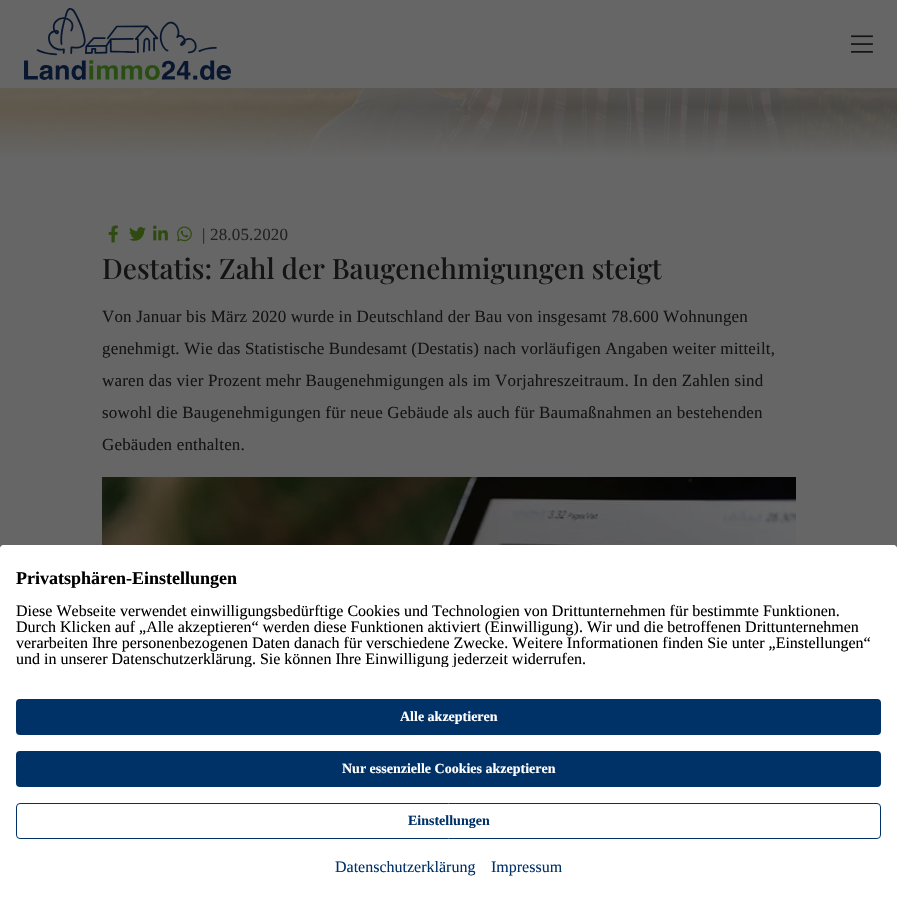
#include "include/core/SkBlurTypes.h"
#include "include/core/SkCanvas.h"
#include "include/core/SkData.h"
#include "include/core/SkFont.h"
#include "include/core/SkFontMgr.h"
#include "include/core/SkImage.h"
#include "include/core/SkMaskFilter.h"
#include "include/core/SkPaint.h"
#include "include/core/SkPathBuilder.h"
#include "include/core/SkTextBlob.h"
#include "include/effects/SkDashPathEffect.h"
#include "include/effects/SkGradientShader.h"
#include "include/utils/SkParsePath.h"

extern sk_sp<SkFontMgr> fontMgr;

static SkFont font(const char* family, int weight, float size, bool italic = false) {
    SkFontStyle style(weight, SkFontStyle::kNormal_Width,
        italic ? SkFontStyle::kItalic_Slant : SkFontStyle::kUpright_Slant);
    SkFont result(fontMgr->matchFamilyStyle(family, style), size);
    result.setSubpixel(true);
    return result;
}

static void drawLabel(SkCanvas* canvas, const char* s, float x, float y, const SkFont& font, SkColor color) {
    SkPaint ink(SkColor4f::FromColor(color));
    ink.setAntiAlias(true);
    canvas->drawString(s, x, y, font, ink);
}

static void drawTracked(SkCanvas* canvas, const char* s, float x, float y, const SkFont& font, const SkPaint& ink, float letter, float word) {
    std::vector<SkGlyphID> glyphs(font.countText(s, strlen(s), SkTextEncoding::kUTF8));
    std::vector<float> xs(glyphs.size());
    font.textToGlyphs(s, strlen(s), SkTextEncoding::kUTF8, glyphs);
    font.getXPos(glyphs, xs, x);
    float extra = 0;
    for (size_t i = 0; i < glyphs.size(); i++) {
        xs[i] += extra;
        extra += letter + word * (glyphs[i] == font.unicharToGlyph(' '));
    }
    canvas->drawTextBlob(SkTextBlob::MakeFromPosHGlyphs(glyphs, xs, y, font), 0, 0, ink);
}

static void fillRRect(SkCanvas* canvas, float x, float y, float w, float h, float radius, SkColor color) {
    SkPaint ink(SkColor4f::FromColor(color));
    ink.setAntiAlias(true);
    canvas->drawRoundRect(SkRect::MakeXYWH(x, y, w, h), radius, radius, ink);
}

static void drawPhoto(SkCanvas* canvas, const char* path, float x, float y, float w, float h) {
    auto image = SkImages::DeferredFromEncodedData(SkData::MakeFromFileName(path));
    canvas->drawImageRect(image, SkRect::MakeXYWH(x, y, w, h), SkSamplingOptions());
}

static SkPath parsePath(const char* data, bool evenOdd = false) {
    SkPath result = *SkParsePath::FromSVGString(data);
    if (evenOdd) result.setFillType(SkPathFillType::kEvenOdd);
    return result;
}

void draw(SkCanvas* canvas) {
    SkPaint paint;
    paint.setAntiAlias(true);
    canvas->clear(0xFF666666);
    drawPhoto(canvas, "assets/img1.png", 24, 8, 207, 72);
    drawPhoto(canvas, "assets/img2.png", 851, 35, 22, 18);
    drawPhoto(canvas, "assets/img3.png", 0, 88, 897, 70);
    drawPhoto(canvas, "assets/img4.png", 108, 225, 10, 18);
    drawPhoto(canvas, "assets/img5.png", 129, 227, 17, 14);
    drawPhoto(canvas, "assets/img6.png", 153, 225, 15, 16);
    drawPhoto(canvas, "assets/img7.png", 177, 226, 15, 16);
    SkFont font1 = font("Liberation Serif", 400, 17);
    paint.setColor(0xFF222222);
    drawTracked(canvas, "| 28.05.2020", 202, 240, font1, paint, 0.17f, 0);
    SkFont font2 = font("Playfair Display", 500, 28);
    drawLabel(canvas, "Destatis: Zahl der Baugenehmigungen steigt", 102, 279, font2, 0xFF141414);
    paint.setColor(0xFF141414);
    drawTracked(canvas, "Von Januar bis März 2020 wurde in Deutschland der Bau von insgesamt 78.600 Wohnungen", 102, 322, font1, paint, 0.17f, 0);
    drawTracked(canvas, "genehmigt. Wie das Statistische Bundesamt (Destatis) nach vorläufigen Angaben weiter mitteilt,", 102, 354, font1, paint, 0.17f, 0);
    drawTracked(canvas, "waren das vier Prozent mehr Baugenehmigungen als im Vorjahreszeitraum. In den Zahlen sind", 102, 386, font1, paint, 0.17f, 0);
    drawTracked(canvas, "sowohl die Baugenehmigungen für neue Gebäude als auch für Baumaßnahmen an bestehenden", 102, 418, font1, paint, 0.17f, 0);
    drawTracked(canvas, "Gebäuden enthalten.", 102, 450, font1, paint, 0.17f, 0);
    drawPhoto(canvas, "assets/img8.png", 102, 477, 694, 68);
    paint.setColor(0xFFFFFFFF);
    canvas->drawPath(parsePath("M4 545H893C895 545 897 547 897 549V904H0V549C0 547 2 545 4 545Z"), paint);
    fillRRect(canvas, 0, 545, 897, 359, 4, 0xFFFFFFFF);
    SkFont font3 = font("Liberation Serif", 700, 18);
    drawLabel(canvas, "Privatsphären-Einstellungen", 16, 584, font3, 0xFF000000);
    SkFont font4 = font("Liberation Serif", 400, 16);
    drawLabel(canvas, "Diese Webseite verwendet einwilligungsbedürftige Cookies und Technologien von Drittunternehmen für bestimmte Funktionen.", 16, 616, font4, 0xFF000000);
    drawLabel(canvas, "Durch Klicken auf „Alle akzeptieren“ werden diese Funktionen aktiviert (Einwilligung). Wir und die betroffenen Drittunternehmen", 16, 632, font4, 0xFF000000);
    drawLabel(canvas, "verarbeiten Ihre personenbezogenen Daten danach für verschiedene Zwecke. Weitere Informationen finden Sie unter „Einstellungen“", 16, 648, font4, 0xFF000000);
    canvas->save();
    canvas->clipRect(SkRect::MakeXYWH(16, 603, 865, 64));
    drawLabel(canvas, "und in unserer Datenschutzerklärung. Sie können Ihre Einwilligung jederzeit widerrufen.", 16, 664, font4, 0xFF000000);
    canvas->restore();
    fillRRect(canvas, 16, 699, 865, 36, 4, 0xFF003167);
    SkFont font5 = font("Liberation Serif", 700, 14);
    drawLabel(canvas, "Alle akzeptieren", 400, 721, font5, 0xFFFFFFFF);
    fillRRect(canvas, 16, 751, 865, 36, 4, 0xFF003167);
    drawLabel(canvas, "Nur essenzielle Cookies akzeptieren", 342, 773, font5, 0xFFFFFFFF);
    paint.setStroke(true);
    paint.setStrokeWidth(1);
    paint.setColor(0xFF003167);
    canvas->drawRoundRect(SkRect::MakeXYWH(16.5f, 803.5f, 864, 35), 3.5f, 3.5f, paint);
    drawLabel(canvas, "Einstellungen", 408, 825, font5, 0xFF003167);
    drawLabel(canvas, "Datenschutzerklärung", 335, 872, font4, 0xFF003167);
    drawLabel(canvas, "Impressum", 491, 872, font4, 0xFF003167);
}
